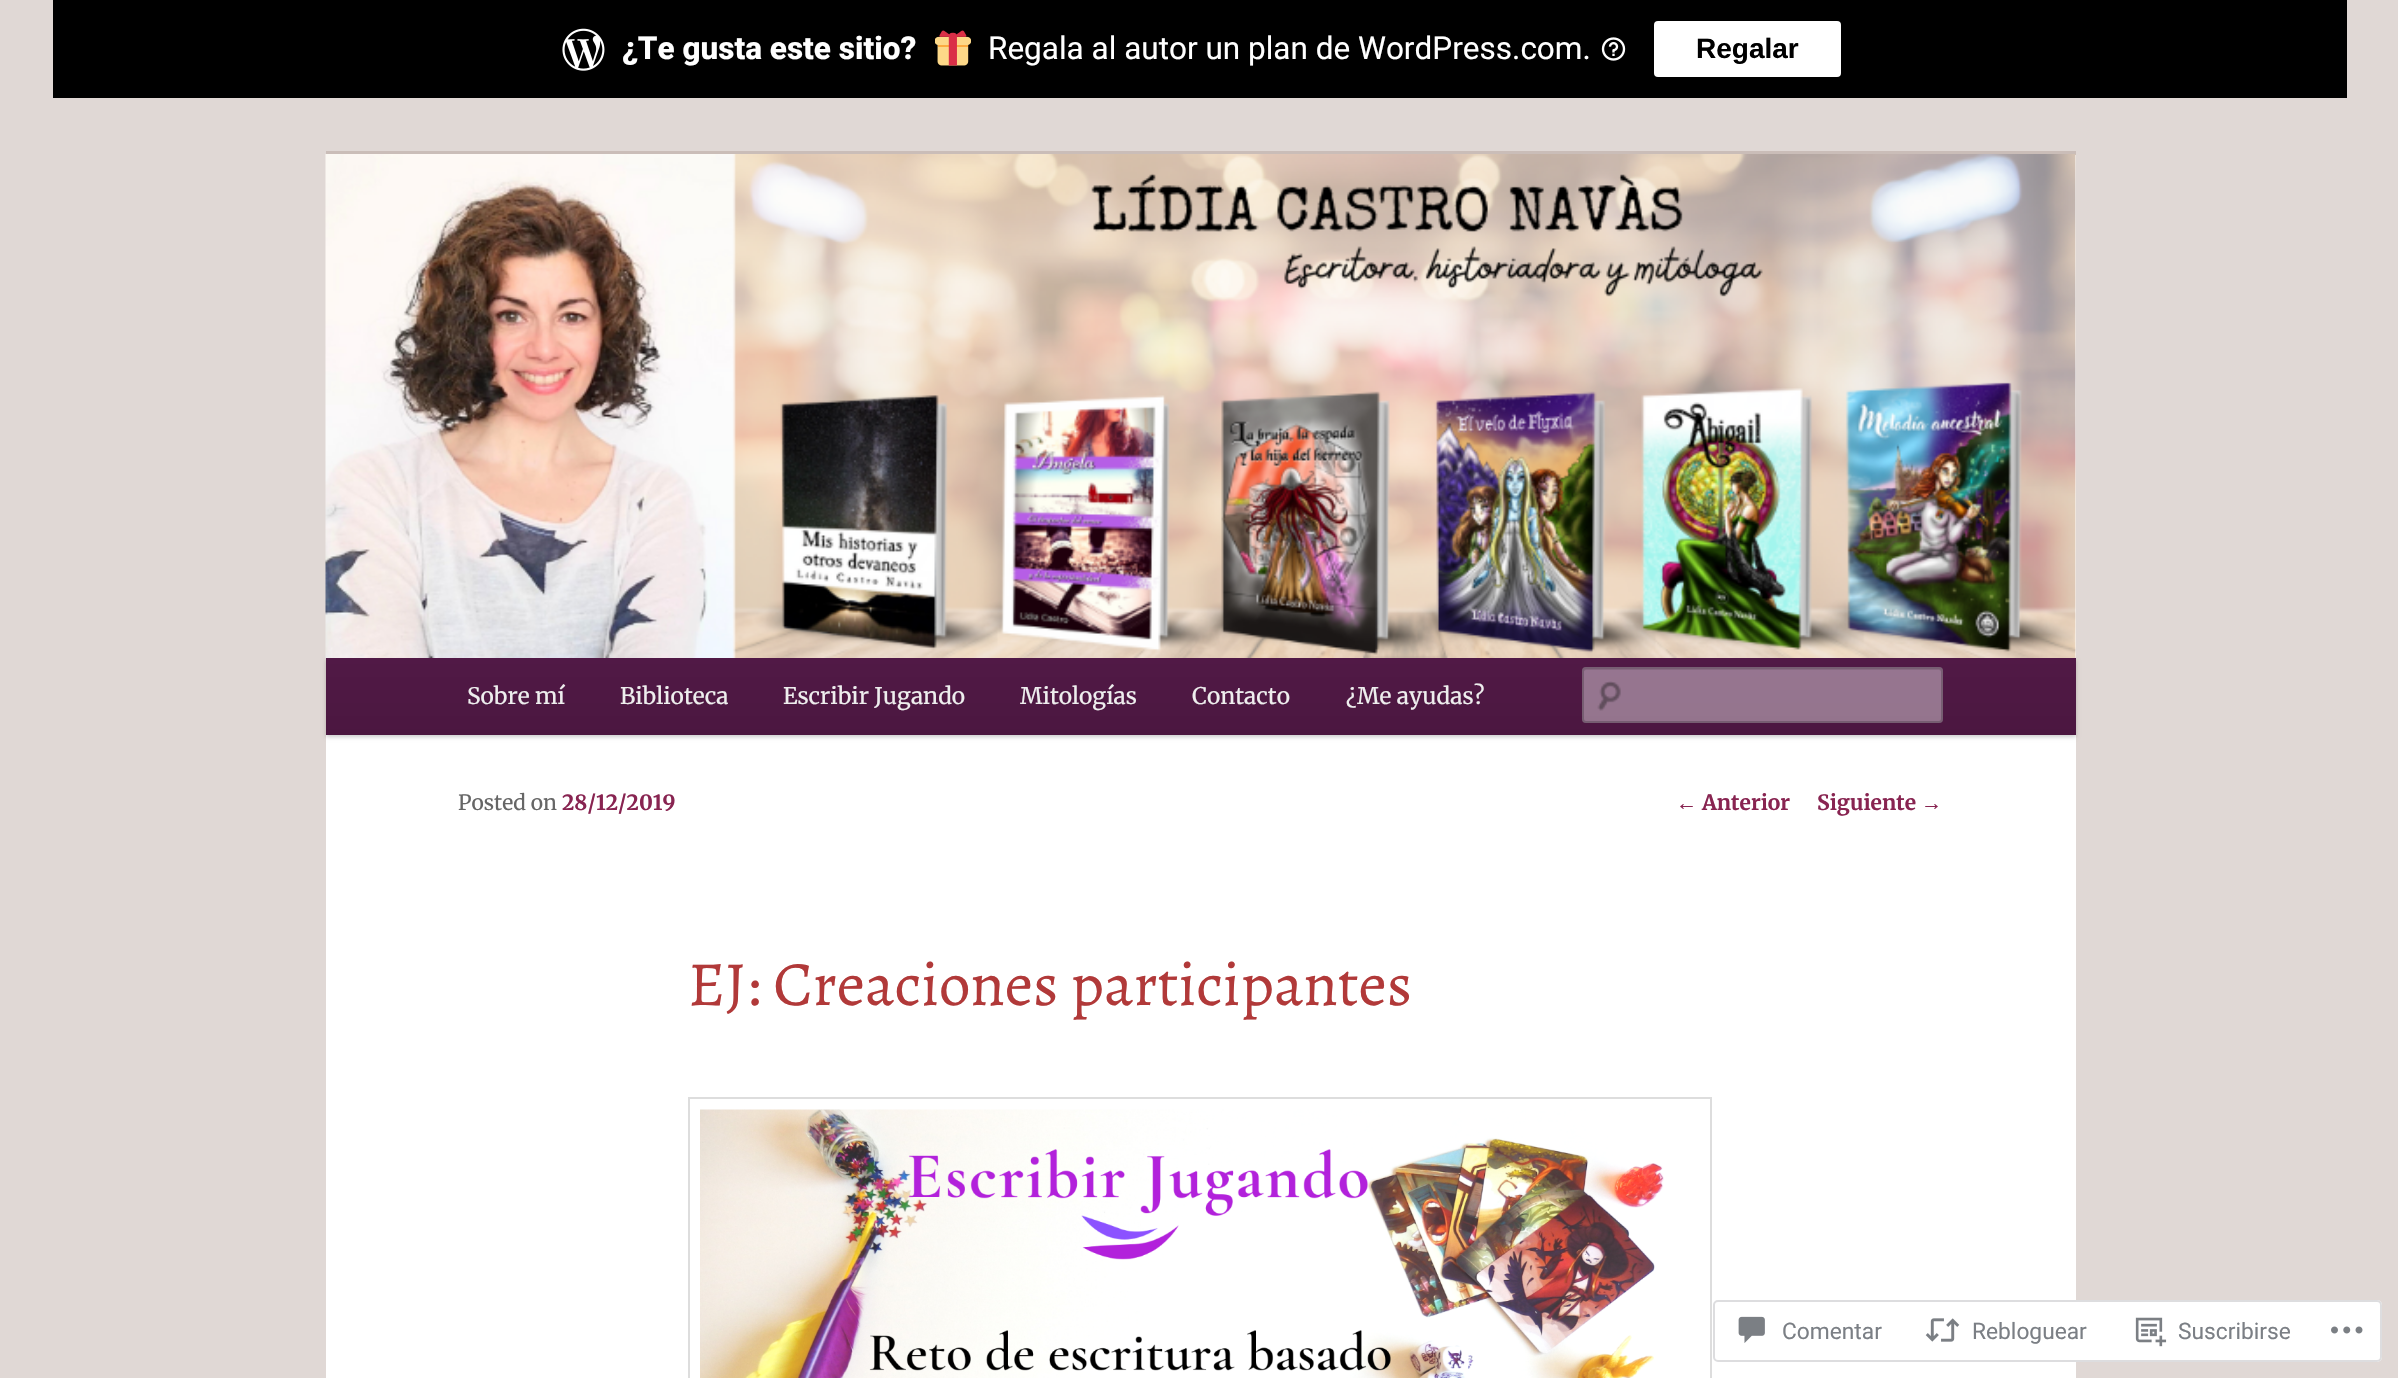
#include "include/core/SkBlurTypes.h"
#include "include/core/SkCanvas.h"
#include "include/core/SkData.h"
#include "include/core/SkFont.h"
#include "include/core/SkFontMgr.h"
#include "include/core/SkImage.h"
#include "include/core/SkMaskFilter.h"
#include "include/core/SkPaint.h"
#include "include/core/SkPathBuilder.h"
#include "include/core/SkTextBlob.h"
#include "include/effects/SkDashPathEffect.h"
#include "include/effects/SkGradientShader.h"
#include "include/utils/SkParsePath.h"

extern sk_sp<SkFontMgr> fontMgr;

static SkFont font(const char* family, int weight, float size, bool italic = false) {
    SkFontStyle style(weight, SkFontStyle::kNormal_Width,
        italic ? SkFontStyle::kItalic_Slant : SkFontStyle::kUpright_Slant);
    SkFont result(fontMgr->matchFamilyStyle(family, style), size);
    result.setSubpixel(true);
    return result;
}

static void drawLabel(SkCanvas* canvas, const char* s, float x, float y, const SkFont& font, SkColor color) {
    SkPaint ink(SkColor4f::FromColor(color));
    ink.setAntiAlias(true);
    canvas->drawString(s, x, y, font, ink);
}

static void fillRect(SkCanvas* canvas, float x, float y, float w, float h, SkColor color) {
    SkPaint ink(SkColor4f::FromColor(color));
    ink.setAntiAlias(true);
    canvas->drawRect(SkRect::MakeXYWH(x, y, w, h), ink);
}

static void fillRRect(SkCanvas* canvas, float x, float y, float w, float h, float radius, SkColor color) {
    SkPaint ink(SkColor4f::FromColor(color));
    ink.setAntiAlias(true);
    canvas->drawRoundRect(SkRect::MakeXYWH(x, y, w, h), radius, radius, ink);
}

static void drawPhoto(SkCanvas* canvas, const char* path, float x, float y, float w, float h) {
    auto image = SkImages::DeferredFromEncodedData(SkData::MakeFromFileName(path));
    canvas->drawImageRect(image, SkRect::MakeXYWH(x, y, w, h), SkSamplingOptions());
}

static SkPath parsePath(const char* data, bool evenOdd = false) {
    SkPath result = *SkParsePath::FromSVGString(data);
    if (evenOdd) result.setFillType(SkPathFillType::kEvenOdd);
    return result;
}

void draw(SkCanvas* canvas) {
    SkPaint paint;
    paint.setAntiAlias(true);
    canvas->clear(0xFFE0D8D5);
    fillRect(canvas, 53, 0, 2294, 98, 0xFF000000);
    drawPhoto(canvas, "assets/img1.png", 562, 28, 43, 43);
    SkFont font1 = font("Roboto", 800, 31.5f);
    drawLabel(canvas, "¿Te gusta este sitio?", 622, 59, font1, 0xFFFFFFFF);
    drawPhoto(canvas, "assets/img2.png", 935, 30, 36, 36);
    SkFont font2 = font("Roboto", 400, 31.5f);
    drawLabel(canvas, "Regala al autor un plan de WordPress.com.", 988, 59, font2, 0xFFFFFFFF);
    drawPhoto(canvas, "assets/img3.png", 1601, 37, 25, 24);
    fillRRect(canvas, 1654, 21, 187, 56, 4, 0xFFFFFFFF);
    SkFont font3 = font("Liberation Sans", 700, 28);
    drawLabel(canvas, "Regalar", 1696, 58, font3, 0xFF000000);
    fillRect(canvas, 326, 155, 1750, 1223, 0xFFFFFFFF);
    fillRect(canvas, 326, 151, 1750, 4, 0xFFCABDB8);
    paint.setColor(0x33000000);
    paint.setMaskFilter(SkMaskFilter::MakeBlur(kNormal_SkBlurStyle, 2));
    canvas->drawRect(SkRect::MakeXYWH(326, 660, 1750, 77), paint);
    paint.setMaskFilter(nullptr);
    drawPhoto(canvas, "assets/img4.png", 325, 154, 1751, 504);
    {
        const SkColor colors[] = {0xFF511946, 0xFF4B1740};
        const float stops[] = {0, 1};
        const SkPoint ends[] = {{1201, 658}, {1201, 735}};
        paint.setShader(SkGradientShader::MakeLinear(ends, colors, stops, 2, SkTileMode::kClamp));
        paint.setAlpha(255);
    }
    canvas->drawRect(SkRect::MakeXYWH(326, 658, 1750, 77), paint);
    SkFont font4 = font("Merriweather", 400, 22.75f);
    drawLabel(canvas, "Sobre mí", 467, 704, font4, 0xFFEEEEEE);
    drawLabel(canvas, "Biblioteca", 620, 704, font4, 0xFFEEEEEE);
    drawLabel(canvas, "Escribir Jugando", 783, 704, font4, 0xFFEEEEEE);
    drawLabel(canvas, "Mitologías", 1020, 704, font4, 0xFFEEEEEE);
    drawLabel(canvas, "Contacto", 1192, 704, font4, 0xFFEEEEEE);
    drawLabel(canvas, "¿Me ayudas?", 1346, 704, font4, 0xFFEEEEEE);
    fillRRect(canvas, 1582, 667, 361, 56, 4, 0x66FFFFFF);
    drawPhoto(canvas, "assets/img5.png", 1597, 681, 24, 30);
    paint.setShader(nullptr);
    paint.setColor(0xFF876981);
    canvas->drawPath(parsePath("M1586 670H1939C1940 670 1941 671 1941 672C1941 671 1941 669 1939 669H1586C1584 669 1584 671 1584 672C1584 671 1585 670 1586 670Z"), paint);
    paint.setStroke(true);
    paint.setStrokeWidth(2);
    paint.setColor(0x33000000);
    canvas->drawRoundRect(SkRect::MakeXYWH(1583, 668, 359, 54), 3, 3, paint);
    SkFont font5 = font("Merriweather", 400, 21);
    drawLabel(canvas, "Posted on", 458, 810, font5, 0xFF666666);
    SkFont font6 = font("Merriweather", 700, 21);
    drawLabel(canvas, "28/12/2019", 562, 810, font6, 0xFF882451);
    SkFont font7 = font("Alegreya", 400, 63);
    drawLabel(canvas, "EJ: Creaciones participantes", 688, 1005, font7, 0xFFB13939);
    paint.setColor(0xFFDDDDDD);
    canvas->drawRect(SkRect::MakeXYWH(689, 1098, 1022, 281), paint);
    drawPhoto(canvas, "assets/img6.png", 700, 1109, 964, 269);
    SkFont font8 = font("Liberation Serif", 400, 21);
    drawLabel(canvas, "←", 1676, 810, font8, 0xFF882451);
    drawLabel(canvas, "Anterior", 1702, 810, font6, 0xFF882451);
    drawLabel(canvas, "Siguiente", 1817, 810, font6, 0xFF882451);
    drawLabel(canvas, "→", 1921, 810, font8, 0xFF882451);
    fillRRect(canvas, 1713, 1300, 669, 62, 5, 0xFAFFFFFF);
    paint.setColor(0xFADCDCDE);
    canvas->drawRoundRect(SkRect::MakeXYWH(1714, 1301, 667, 60), 4, 4, paint);
    drawPhoto(canvas, "assets/img7.png", 1738, 1316, 27, 27);
    SkFont font9 = font("Roboto", 400, 22.75f);
    drawLabel(canvas, "Comentar", 1782, 1339, font9, 0xFF7B7F85);
    drawPhoto(canvas, "assets/img8.png", 1925, 1318, 35, 24);
    drawLabel(canvas, "Rebloguear", 1972, 1339, font9, 0xFF7B7F85);
    drawPhoto(canvas, "assets/img9.png", 2135, 1317, 32, 30);
    drawLabel(canvas, "Suscribirse", 2178, 1339, font9, 0xFF7B7F85);
    drawPhoto(canvas, "assets/img10.png", 2331, 1326, 32, 8);
}
